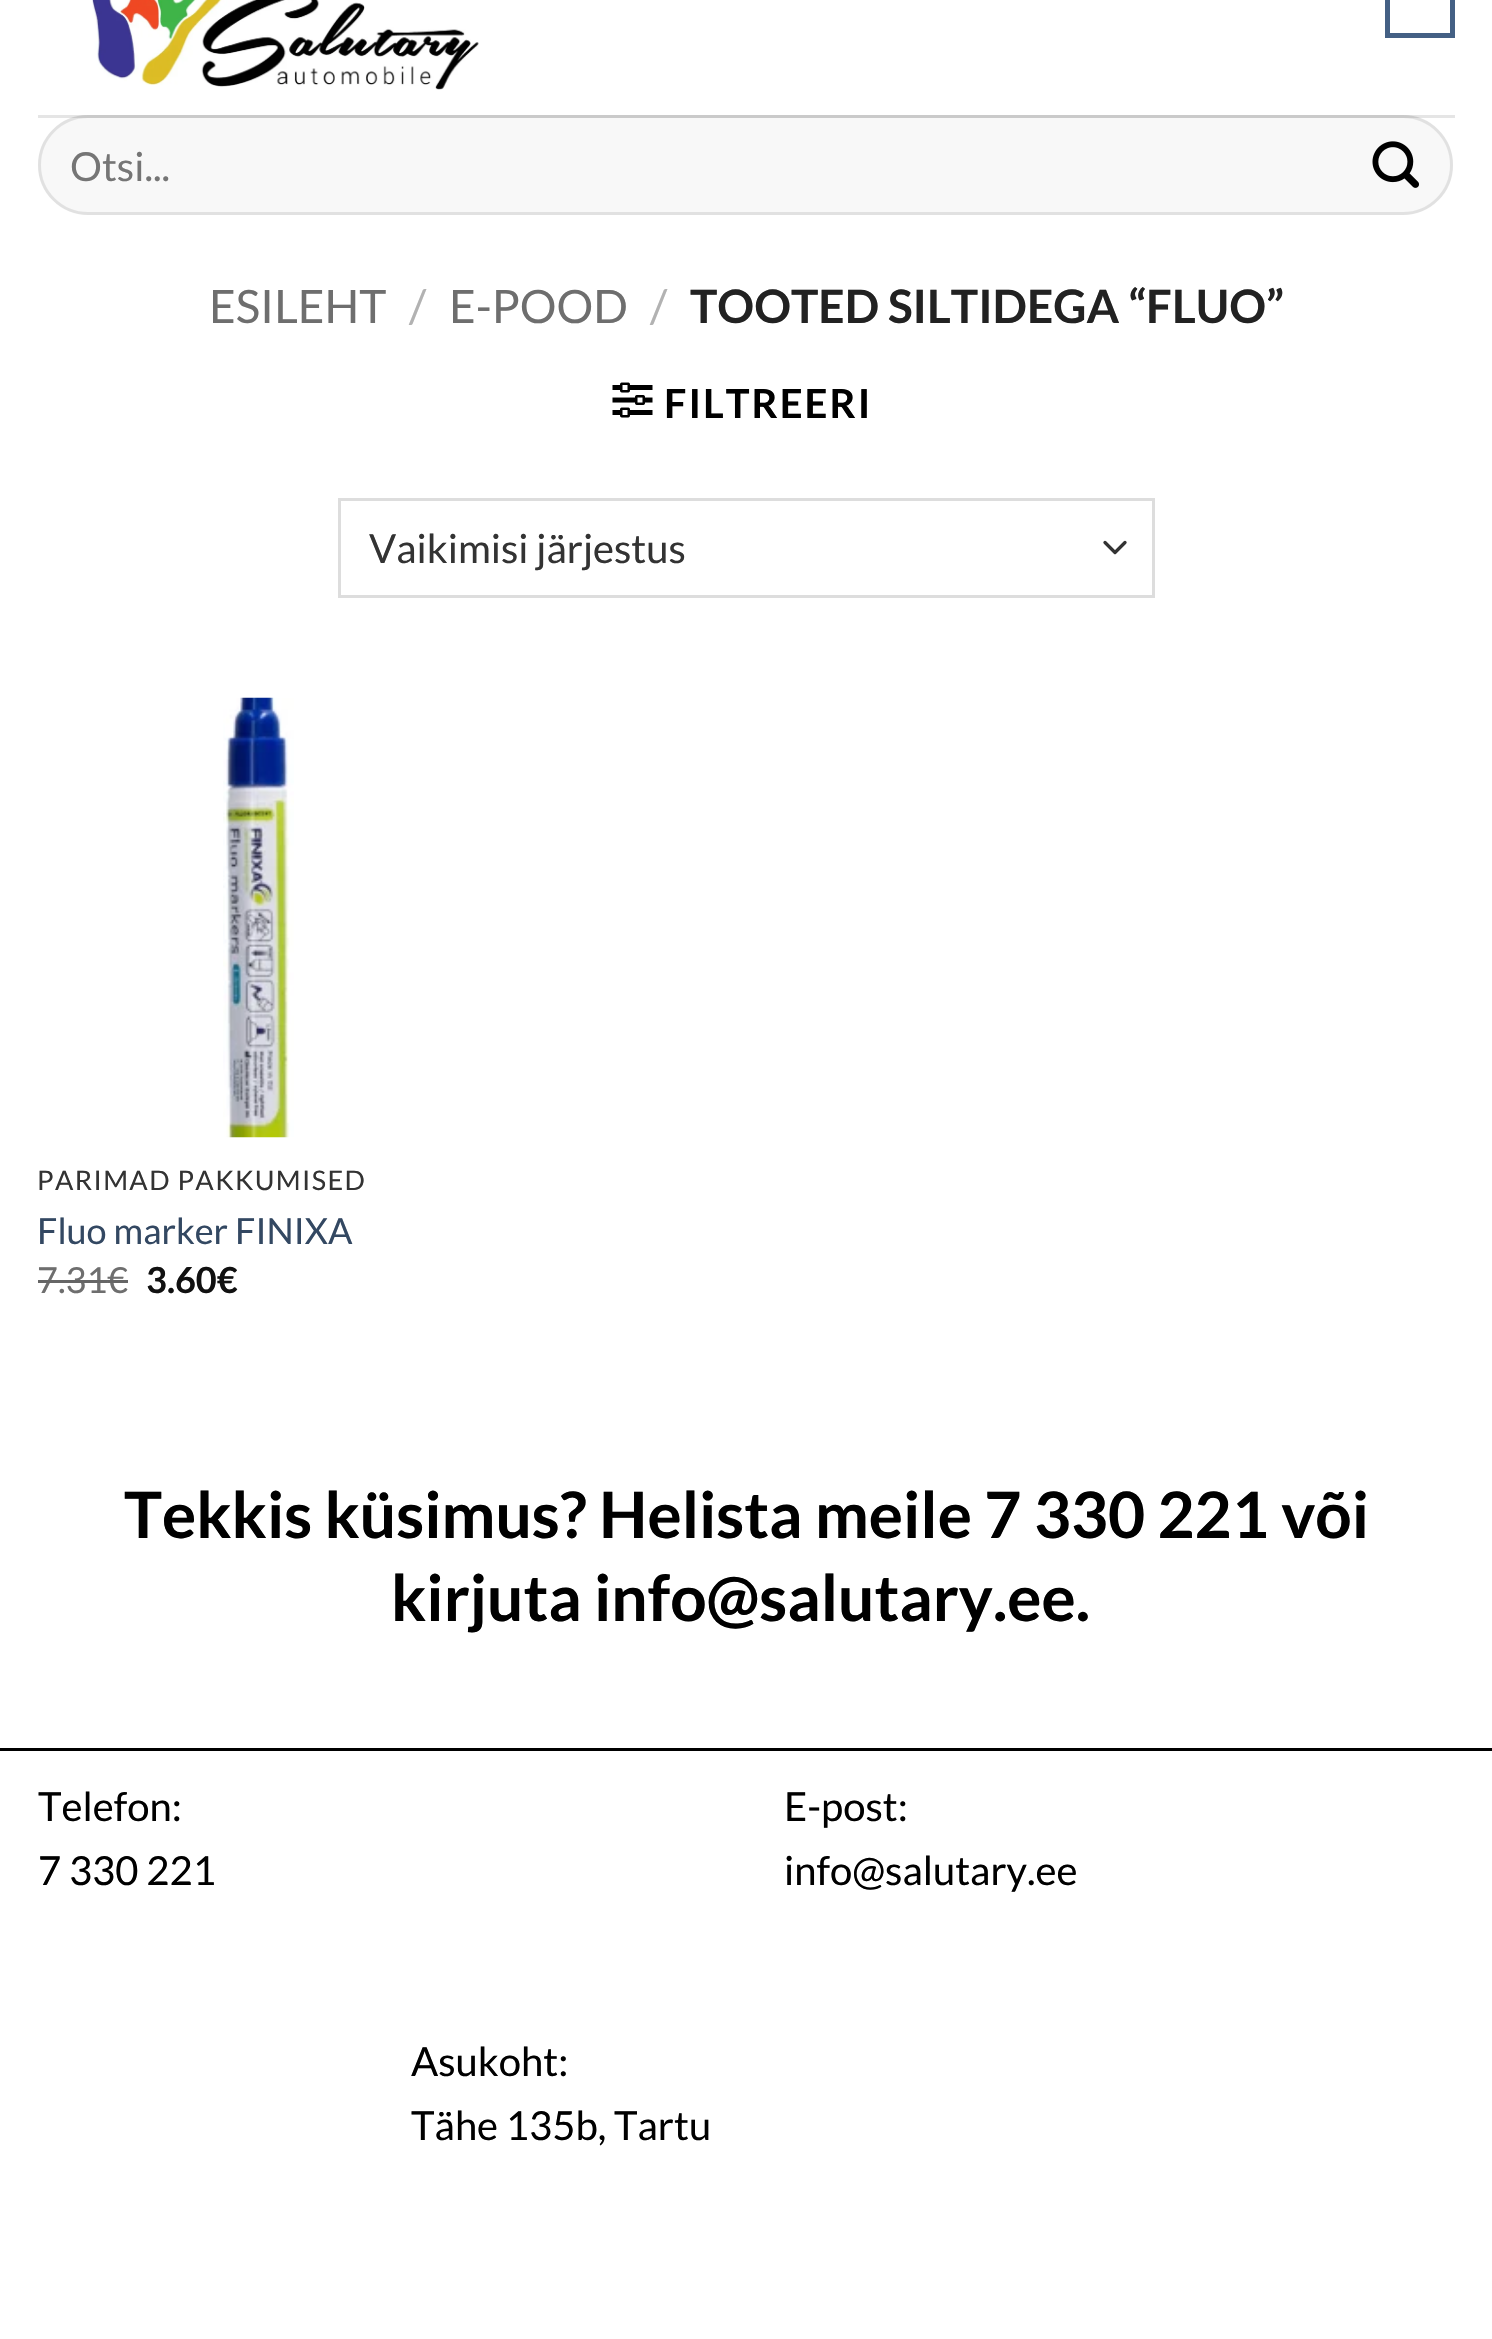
#include "include/core/SkBlurTypes.h"
#include "include/core/SkCanvas.h"
#include "include/core/SkData.h"
#include "include/core/SkFont.h"
#include "include/core/SkFontMgr.h"
#include "include/core/SkImage.h"
#include "include/core/SkMaskFilter.h"
#include "include/core/SkPaint.h"
#include "include/core/SkPathBuilder.h"
#include "include/core/SkTextBlob.h"
#include "include/effects/SkDashPathEffect.h"
#include "include/effects/SkGradientShader.h"
#include "include/utils/SkParsePath.h"

extern sk_sp<SkFontMgr> fontMgr;

static SkFont font(const char* family, int weight, float size, bool italic = false) {
    SkFontStyle style(weight, SkFontStyle::kNormal_Width,
        italic ? SkFontStyle::kItalic_Slant : SkFontStyle::kUpright_Slant);
    SkFont result(fontMgr->matchFamilyStyle(family, style), size);
    result.setSubpixel(true);
    return result;
}

static void drawLabel(SkCanvas* canvas, const char* s, float x, float y, const SkFont& font, SkColor color) {
    SkPaint ink(SkColor4f::FromColor(color));
    ink.setAntiAlias(true);
    canvas->drawString(s, x, y, font, ink);
}

static void drawTracked(SkCanvas* canvas, const char* s, float x, float y, const SkFont& font, const SkPaint& ink, float letter, float word) {
    std::vector<SkGlyphID> glyphs(font.countText(s, strlen(s), SkTextEncoding::kUTF8));
    std::vector<float> xs(glyphs.size());
    font.textToGlyphs(s, strlen(s), SkTextEncoding::kUTF8, glyphs);
    font.getXPos(glyphs, xs, x);
    float extra = 0;
    for (size_t i = 0; i < glyphs.size(); i++) {
        xs[i] += extra;
        extra += letter + word * (glyphs[i] == font.unicharToGlyph(' '));
    }
    canvas->drawTextBlob(SkTextBlob::MakeFromPosHGlyphs(glyphs, xs, y, font), 0, 0, ink);
}

static void fillRect(SkCanvas* canvas, float x, float y, float w, float h, SkColor color) {
    SkPaint ink(SkColor4f::FromColor(color));
    ink.setAntiAlias(true);
    canvas->drawRect(SkRect::MakeXYWH(x, y, w, h), ink);
}

static void fillRRect(SkCanvas* canvas, float x, float y, float w, float h, float radius, SkColor color) {
    SkPaint ink(SkColor4f::FromColor(color));
    ink.setAntiAlias(true);
    canvas->drawRoundRect(SkRect::MakeXYWH(x, y, w, h), radius, radius, ink);
}

static void drawPhoto(SkCanvas* canvas, const char* path, float x, float y, float w, float h) {
    auto image = SkImages::DeferredFromEncodedData(SkData::MakeFromFileName(path));
    canvas->drawImageRect(image, SkRect::MakeXYWH(x, y, w, h), SkSamplingOptions());
}

static SkPath parsePath(const char* data, bool evenOdd = false) {
    SkPath result = *SkParsePath::FromSVGString(data);
    if (evenOdd) result.setFillType(SkPathFillType::kEvenOdd);
    return result;
}

void draw(SkCanvas* canvas) {
    SkPaint paint;
    paint.setAntiAlias(true);
    canvas->clear(0xFFFFFFFF);
    drawPhoto(canvas, "assets/img1.png", 92, 0, 387, 90);
    paint.setStroke(true);
    paint.setStrokeWidth(5);
    paint.setColor(0xFF446084);
    canvas->drawRect(SkRect::MakeXYWH(1387.5f, -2.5f, 65, 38), paint);
    fillRRect(canvas, 38, 115, 1415, 100, 50, 0xFFF8F8F8);
    paint.setStrokeWidth(3);
    paint.setColor(0x17000000);
    canvas->drawRoundRect(SkRect::MakeXYWH(39.5f, 116.5f, 1412, 97), 48.5f, 48.5f, paint);
    fillRect(canvas, 38, 115, 1417, 3, 0x1A000000);
    SkFont font1 = font("Lato", 400, 40);
    drawLabel(canvas, "Otsi...", 70, 181, font1, 0xFF757575);
    drawPhoto(canvas, "assets/img2.png", 1372, 141, 47, 47);
    SkFont font2 = font("Lato", 400, 46);
    drawLabel(canvas, "ESILEHT", 209, 323, font2, 0xFF6E6E6E);
    drawLabel(canvas, "/", 409, 323, font2, 0xFFB2B2B2);
    drawLabel(canvas, "E-POOD", 449, 323, font2, 0xFF6E6E6E);
    drawLabel(canvas, "/", 650, 323, font2, 0xFFB2B2B2);
    SkFont font3 = font("Lato", 700, 46);
    drawLabel(canvas, "TOOTED SILTIDEGA “FLUO”", 690, 323, font3, 0xFF222222);
    drawPhoto(canvas, "assets/img3.png", 612, 382, 41, 36);
    SkFont font4 = font("Lato", 700, 40);
    paint.setStroke(false);
    paint.setColor(0xFF000000);
    drawTracked(canvas, "FILTREERI", 664, 418, font4, paint, 2, 0);
    paint.setStroke(true);
    paint.setStrokeWidth(3.3f);
    paint.setStrokeCap(SkPaint::kRound_Cap);
    paint.setStrokeJoin(SkPaint::kRound_Join);
    paint.setColor(0xFF333333);
    canvas->drawPath(parsePath("M1105 542.5L1115 552.5L1125 542.5"), paint);
    paint.setStrokeWidth(3);
    paint.setStrokeCap(SkPaint::kButt_Cap);
    paint.setStrokeJoin(SkPaint::kMiter_Join);
    paint.setColor(0xFFDDDDDD);
    canvas->drawRect(SkRect::MakeXYWH(339.5f, 499.5f, 814, 97), paint);
    drawLabel(canvas, "Vaikimisi järjestus", 369, 563, font1, 0xFF333333);
    drawPhoto(canvas, "assets/img4.png", 223, 697, 71, 441);
    SkFont font5 = font("Lato", 400, 27);
    paint.setStroke(false);
    paint.setColor(0xFF333333);
    drawTracked(canvas, "PARIMAD PAKKUMISED", 37, 1190, font5, paint, 1.4f, 0);
    SkFont font6 = font("Lato", 400, 36);
    drawLabel(canvas, "Fluo marker FINIXA", 37, 1244, font6, 0xFF334862);
    drawLabel(canvas, "7.31", 37, 1293, font6, 0xFF6E6E6E);
    fillRect(canvas, 38, 1280, 70, 3, 0xFF666666);
    drawLabel(canvas, "€", 107, 1293, font6, 0xFF6E6E6E);
    fillRect(canvas, 108, 1280, 20, 3, 0xFF666666);
    SkFont font7 = font("Lato", 700, 36);
    drawLabel(canvas, "3.60€", 146, 1293, font7, 0xFF111111);
    SkFont font8 = font("Lato", 700, 64);
    drawLabel(canvas, "Tekkis küsimus? Helista meile 7 330 221 või", 124, 1538, font8, 0xFF000000);
    drawLabel(canvas, "kirjuta info@salutary.ee.", 391, 1621, font8, 0xFF000000);
    fillRect(canvas, 0, 1748, 1492, 3, 0xFF000000);
    drawLabel(canvas, "Telefon:", 38, 1821, font1, 0xFF000000);
    drawLabel(canvas, "7 330 221", 38, 1885, font1, 0xFF000000);
    drawLabel(canvas, "E-post:", 784, 1821, font1, 0xFF000000);
    drawLabel(canvas, "info@salutary.ee", 784, 1885, font1, 0xFF000000);
    drawLabel(canvas, "Asukoht:", 411, 2076, font1, 0xFF000000);
    drawLabel(canvas, "Tähe 135b, Tartu", 411, 2140, font1, 0xFF000000);
}
